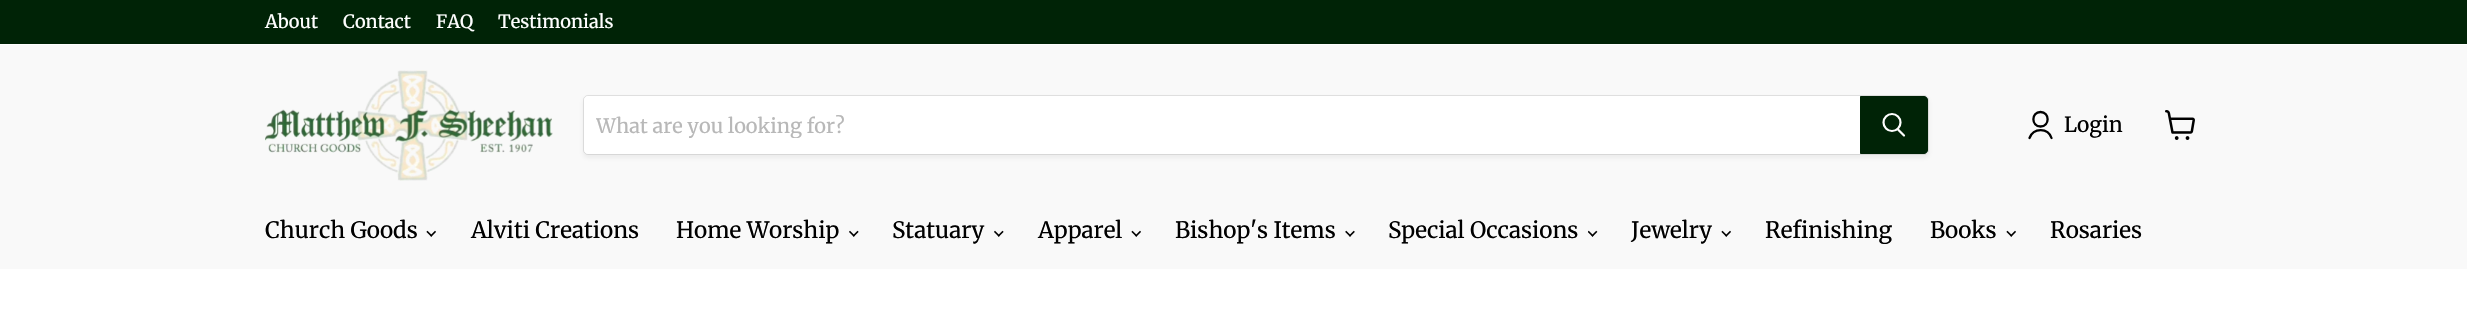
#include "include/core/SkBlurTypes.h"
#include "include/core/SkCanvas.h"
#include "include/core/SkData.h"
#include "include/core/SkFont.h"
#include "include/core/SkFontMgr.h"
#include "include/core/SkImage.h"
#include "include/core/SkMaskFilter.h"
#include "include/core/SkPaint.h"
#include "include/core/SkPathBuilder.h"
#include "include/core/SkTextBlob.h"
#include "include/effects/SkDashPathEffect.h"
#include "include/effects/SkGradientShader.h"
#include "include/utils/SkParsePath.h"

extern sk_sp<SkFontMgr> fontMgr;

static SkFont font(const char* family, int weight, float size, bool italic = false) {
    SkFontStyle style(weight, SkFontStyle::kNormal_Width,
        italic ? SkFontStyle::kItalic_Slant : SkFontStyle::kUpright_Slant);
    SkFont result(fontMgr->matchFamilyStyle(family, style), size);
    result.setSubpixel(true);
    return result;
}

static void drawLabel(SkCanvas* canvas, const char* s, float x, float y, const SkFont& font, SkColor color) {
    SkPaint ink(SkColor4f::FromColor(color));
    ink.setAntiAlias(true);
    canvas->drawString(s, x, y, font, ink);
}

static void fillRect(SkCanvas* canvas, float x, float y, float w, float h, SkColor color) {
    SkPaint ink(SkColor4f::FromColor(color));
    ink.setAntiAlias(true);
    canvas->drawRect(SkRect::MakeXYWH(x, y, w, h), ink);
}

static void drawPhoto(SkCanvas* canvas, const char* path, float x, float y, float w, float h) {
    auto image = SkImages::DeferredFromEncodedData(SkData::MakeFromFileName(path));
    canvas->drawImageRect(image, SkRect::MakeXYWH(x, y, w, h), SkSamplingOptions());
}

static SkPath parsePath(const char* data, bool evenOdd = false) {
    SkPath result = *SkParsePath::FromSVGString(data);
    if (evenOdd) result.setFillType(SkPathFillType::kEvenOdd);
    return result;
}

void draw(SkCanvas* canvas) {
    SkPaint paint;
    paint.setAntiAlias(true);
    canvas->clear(0xFFFFFFFF);
    fillRect(canvas, 0, 0, 2467, 44, 0xFF002306);
    SkFont font1 = font("Merriweather", 400, 18.25f);
    drawLabel(canvas, "About", 265, 28, font1, 0xFFFFFFFF);
    drawLabel(canvas, "Contact", 343, 28, font1, 0xFFFFFFFF);
    drawLabel(canvas, "FAQ", 436, 28, font1, 0xFFFFFFFF);
    drawLabel(canvas, "Testimonials", 498, 28, font1, 0xFFFFFFFF);
    fillRect(canvas, 0, 45, 2467, 224, 0xFFF9F9F9);
    drawPhoto(canvas, "assets/img1.png", 265, 70, 288, 111);
    paint.setColor(0x1C808080);
    paint.setMaskFilter(SkMaskFilter::MakeBlur(kNormal_SkBlurStyle, 2));
    canvas->drawRoundRect(SkRect::MakeXYWH(583, 98, 1346, 60), 5, 5, paint);
    paint.setMaskFilter(nullptr);
    paint.setStroke(true);
    paint.setStrokeWidth(1);
    paint.setColor(0x33808080);
    canvas->drawRoundRect(SkRect::MakeXYWH(583.5f, 95.5f, 1345, 59), 4.5f, 4.5f, paint);
    paint.setStroke(false);
    paint.setColor(0xFFFFFFFF);
    canvas->drawPath(parsePath("M588 96H1860V154H588C586 154 584 152 584 150V100C584 98 586 96 588 96Z"), paint);
    canvas->save();
    canvas->clipRect(SkRect::MakeXYWH(596, 113, 1252, 25));
    SkFont font2 = font("Merriweather", 400, 20);
    drawLabel(canvas, "What are you looking for?", 596, 133, font2, 0xFFB8B8B8);
    canvas->restore();
    paint.setColor(0xFF002306);
    canvas->drawPath(parsePath("M1860.5 96.5H1924C1926 96.5 1927.5 98 1927.5 100V150C1927.5 152 1926 153.5 1924 153.5H1860.5Z"), paint);
    paint.setStroke(true);
    canvas->drawPath(parsePath("M1860.5 96.5H1924C1926 96.5 1927.5 98 1927.5 100V150C1927.5 152 1926 153.5 1924 153.5H1860.5Z"), paint);
    paint.setStrokeWidth(2.2f);
    paint.setStrokeCap(SkPaint::kRound_Cap);
    paint.setColor(0xFFFFFFFF);
    canvas->drawPath(parsePath("M1904 135.5L1898 129.5"), paint);
    paint.setStrokeCap(SkPaint::kButt_Cap);
    canvas->drawCircle(1892, 122.5f, 8.5f, paint);
    paint.setStrokeWidth(2.3f);
    paint.setStrokeCap(SkPaint::kRound_Cap);
    paint.setStrokeJoin(SkPaint::kRound_Join);
    paint.setColor(0xFF000000);
    canvas->drawPath(parsePath("M2040.5 126.5C2050 126.5 2050 112 2040.5 112C2031 112 2031 126.5 2040.5 126.5ZM2051.5 138C2048 127.5 2033.5 127.5 2029.5 138"), paint);
    SkFont font3 = font("Merriweather", 400, 21);
    drawLabel(canvas, "Login", 2064, 132, font3, 0xFF000000);
    drawPhoto(canvas, "assets/img2.png", 2165, 110, 30, 30);
    SkFont font4 = font("Merriweather", 400, 22.5f);
    drawLabel(canvas, "Church Goods", 265, 238, font4, 0xFF000000);
    drawPhoto(canvas, "assets/img3.png", 426, 230, 10, 7);
    drawLabel(canvas, "Alviti Creations", 471, 238, font4, 0xFF000000);
    drawLabel(canvas, "Home Worship", 676, 238, font4, 0xFF000000);
    drawPhoto(canvas, "assets/img4.png", 849, 230, 10, 7);
    drawLabel(canvas, "Statuary", 892, 238, font4, 0xFF000000);
    drawPhoto(canvas, "assets/img4.png", 994, 230, 10, 7);
    drawLabel(canvas, "Apparel", 1038, 238, font4, 0xFF000000);
    drawPhoto(canvas, "assets/img3.png", 1131, 230, 10, 7);
    drawLabel(canvas, "Bishop's Items", 1175, 238, font4, 0xFF000000);
    drawPhoto(canvas, "assets/img5.png", 1345, 230, 10, 7);
    drawLabel(canvas, "Special Occasions", 1388, 238, font4, 0xFF000000);
    drawPhoto(canvas, "assets/img6.png", 1588, 230, 10, 7);
    drawLabel(canvas, "Jewelry", 1631, 238, font4, 0xFF000000);
    drawPhoto(canvas, "assets/img3.png", 1721, 230, 10, 7);
    drawLabel(canvas, "Refinishing", 1765, 238, font4, 0xFF000000);
    drawLabel(canvas, "Books", 1930, 238, font4, 0xFF000000);
    drawPhoto(canvas, "assets/img3.png", 2006, 230, 10, 7);
    drawLabel(canvas, "Rosaries", 2050, 238, font4, 0xFF000000);
}
